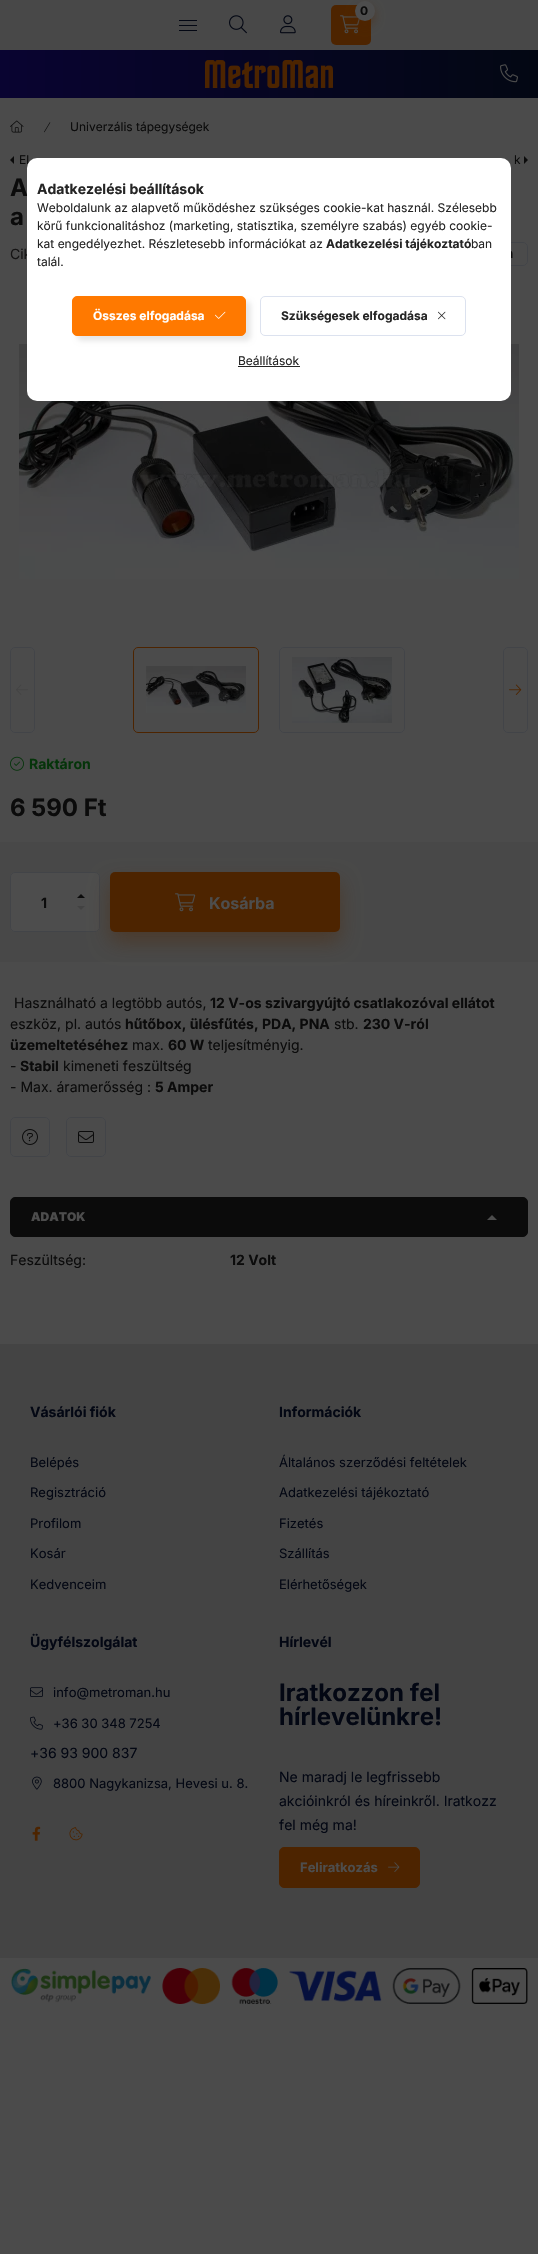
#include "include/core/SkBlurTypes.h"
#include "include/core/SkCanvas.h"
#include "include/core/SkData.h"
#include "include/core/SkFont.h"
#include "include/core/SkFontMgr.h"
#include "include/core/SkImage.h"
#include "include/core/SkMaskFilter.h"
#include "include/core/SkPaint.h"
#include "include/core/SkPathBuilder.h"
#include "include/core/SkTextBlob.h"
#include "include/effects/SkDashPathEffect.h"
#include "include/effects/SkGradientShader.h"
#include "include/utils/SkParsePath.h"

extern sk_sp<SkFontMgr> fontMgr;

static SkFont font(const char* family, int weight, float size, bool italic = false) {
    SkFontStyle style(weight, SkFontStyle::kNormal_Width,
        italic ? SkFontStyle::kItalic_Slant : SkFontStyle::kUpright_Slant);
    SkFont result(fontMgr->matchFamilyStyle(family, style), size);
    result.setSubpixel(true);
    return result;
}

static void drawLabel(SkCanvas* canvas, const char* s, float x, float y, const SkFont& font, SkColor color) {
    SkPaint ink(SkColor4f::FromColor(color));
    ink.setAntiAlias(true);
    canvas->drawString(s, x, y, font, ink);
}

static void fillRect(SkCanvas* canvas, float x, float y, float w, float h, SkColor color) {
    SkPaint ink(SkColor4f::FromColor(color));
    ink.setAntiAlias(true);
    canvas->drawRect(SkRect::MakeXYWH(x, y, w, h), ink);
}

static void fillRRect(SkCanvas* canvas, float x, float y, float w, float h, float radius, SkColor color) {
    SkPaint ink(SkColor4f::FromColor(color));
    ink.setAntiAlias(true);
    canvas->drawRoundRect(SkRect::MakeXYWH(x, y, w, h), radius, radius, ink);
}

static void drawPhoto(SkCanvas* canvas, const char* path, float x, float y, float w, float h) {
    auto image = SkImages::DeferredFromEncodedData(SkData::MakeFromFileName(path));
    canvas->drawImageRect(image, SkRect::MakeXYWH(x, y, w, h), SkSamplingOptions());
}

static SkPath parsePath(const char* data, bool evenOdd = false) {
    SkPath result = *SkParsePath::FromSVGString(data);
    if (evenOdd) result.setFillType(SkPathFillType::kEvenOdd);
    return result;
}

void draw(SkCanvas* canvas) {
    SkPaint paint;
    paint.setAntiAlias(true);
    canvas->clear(0xFF4B4B4B);
    fillRect(canvas, 0, 0, 538, 50, 0xFF484848);
    fillRRect(canvas, 331, 5, 40, 40, 5, 0xFF4D2400);
    drawPhoto(canvas, "assets/img1.png", 340, 15, 20, 19);
    paint.setColor(0x664D2400);
    paint.setMaskFilter(SkMaskFilter::MakeBlur(kNormal_SkBlurStyle, 5));
    canvas->drawRoundRect(SkRect::MakeXYWH(355, 6, 20, 20), 10, 10, paint);
    paint.setMaskFilter(nullptr);
    paint.setColor(0xFF4D4D4D);
    canvas->drawCircle(365, 11, 10, paint);
    SkFont font1 = font("Inter", 700, 12);
    drawLabel(canvas, "0", 360, 15, font1, 0xFF0B0B0B);
    fillRect(canvas, 179, 20, 18, 1, 0xFF030713);
    fillRect(canvas, 179, 25, 18, 1, 0xFF030713);
    fillRect(canvas, 179, 30, 18, 1, 0xFF030713);
    drawPhoto(canvas, "assets/img2.png", 229, 15, 18, 19);
    drawPhoto(canvas, "assets/img3.png", 280, 15, 16, 19);
    {
        const SkColor colors[] = {0xFF090431, 0xFF030713};
        const float stops[] = {0, 1};
        const SkPoint ends[] = {{0, 1127}, {538, 1127}};
        paint.setShader(SkGradientShader::MakeLinear(ends, colors, stops, 2, SkTileMode::kClamp));
        paint.setAlpha(255);
    }
    canvas->drawRect(SkRect::MakeXYWH(0, 50, 538, 48), paint);
    drawPhoto(canvas, "assets/img4.png", 205, 60, 128, 28);
    drawPhoto(canvas, "assets/img5.png", 500, 64, 18, 19);
    drawPhoto(canvas, "assets/img6.png", 10, 120, 14, 13);
    drawPhoto(canvas, "assets/img7.png", 44, 122, 7, 11);
    SkFont font2 = font("Inter", 400, 12);
    drawLabel(canvas, "Univerzális tápegységek", 70, 131, font2, 0xFF0B0B0B);
    paint.setShader(nullptr);
    paint.setColor(0xFF0B0B0B);
    canvas->drawPath(parsePath("M14 164V156L10 160Z"), paint);
    drawLabel(canvas, "El", 19, 164, font2, 0xFF0B0B0B);
    drawLabel(canvas, "k", 514, 164, font2, 0xFF0B0B0B);
    canvas->drawPath(parsePath("M524 164V156L528 160Z"), paint);
    SkFont font3 = font("Inter", 700, 24);
    drawLabel(canvas, "A", 10, 196, font3, 0xFF0B0B0B);
    drawLabel(canvas, "a", 10, 225, font3, 0xFF0B0B0B);
    SkFont font4 = font("Inter", 400, 14);
    drawLabel(canvas, "Cik", 10, 259, font4, 0xFF151414);
    paint.setStroke(true);
    paint.setStrokeWidth(1);
    paint.setColor(0xFF424448);
    canvas->drawRoundRect(SkRect::MakeXYWH(488.5f, 242.5f, 39, 23), 4.5f, 4.5f, paint);
    drawPhoto(canvas, "assets/img8.png", 511, 251, 2, 7);
    drawPhoto(canvas, "assets/img9.png", 19, 344, 500, 235);
    canvas->drawRoundRect(SkRect::MakeXYWH(10.5f, 647.5f, 24, 85), 4.5f, 4.5f, paint);
    drawPhoto(canvas, "assets/img10.png", 16, 684, 12, 11);
    paint.setColor(0xFF4D2400);
    canvas->drawRoundRect(SkRect::MakeXYWH(133.5f, 647.5f, 125, 85), 4.5f, 4.5f, paint);
    drawPhoto(canvas, "assets/img11.png", 146, 666, 100, 47);
    paint.setColor(0xFF424448);
    canvas->drawRoundRect(SkRect::MakeXYWH(279.5f, 647.5f, 125, 85), 4.5f, 4.5f, paint);
    drawPhoto(canvas, "assets/img12.png", 292, 657, 100, 66);
    canvas->drawRoundRect(SkRect::MakeXYWH(503.5f, 647.5f, 24, 85), 4.5f, 4.5f, paint);
    drawPhoto(canvas, "assets/img13.png", 509, 684, 13, 11);
    drawPhoto(canvas, "assets/img14.png", 10, 756, 14, 15);
    SkFont font5 = font("Inter", 700, 14);
    drawLabel(canvas, "Raktáron", 29, 769, font5, 0xFF05340A);
    drawLabel(canvas, "6 590 Ft", 10, 816, font3, 0xFF0B0B0B);
    fillRect(canvas, 0, 842, 538, 120, 0xFF484848);
    paint.setStroke(false);
    paint.setColor(0xFF4D4D4D);
    canvas->drawRoundRect(SkRect::MakeXYWH(10.5f, 872.5f, 89, 59), 4.5f, 4.5f, paint);
    paint.setStroke(true);
    paint.setColor(0xFF424448);
    canvas->drawRoundRect(SkRect::MakeXYWH(10.5f, 872.5f, 89, 59), 4.5f, 4.5f, paint);
    drawLabel(canvas, "1", 41, 908, font5, 0xFF0B0B0B);
    paint.setStroke(false);
    paint.setColor(0xFF0B0B0B);
    canvas->drawPath(parsePath("M85 898H77L81 894Z"), paint);
    paint.setColor(0xFF424242);
    canvas->drawPath(parsePath("M77 906H85L81 910Z"), paint);
    paint.setColor(0x664D2400);
    paint.setMaskFilter(SkMaskFilter::MakeBlur(kNormal_SkBlurStyle, 10));
    canvas->drawRoundRect(SkRect::MakeXYWH(110, 882, 230, 60), 5, 5, paint);
    paint.setMaskFilter(nullptr);
    fillRRect(canvas, 110, 872, 230, 60, 5, 0xFF4D2400);
    drawPhoto(canvas, "assets/img15.png", 175, 893, 21, 19);
    SkFont font6 = font("Inter", 700, 16);
    drawLabel(canvas, "Kosárba", 209, 909, font6, 0xFF4D4D4D);
    drawLabel(canvas, "Használható a legtöbb autós,", 14, 1008, font4, 0xFF0B0B0B);
    drawLabel(canvas, "12 V-os szivargyújtó csatlakozóval ellátot", 210, 1008, font5, 0xFF0B0B0B);
    drawLabel(canvas, "eszköz, pl. autós", 10, 1029, font4, 0xFF0B0B0B);
    drawLabel(canvas, "hűtőbox, ülésfűtés, PDA, PNA", 125, 1029, font5, 0xFF0B0B0B);
    drawLabel(canvas, "stb.", 334, 1029, font4, 0xFF0B0B0B);
    drawLabel(canvas, "230 V-ról", 363, 1029, font5, 0xFF0B0B0B);
    drawLabel(canvas, "üzemeltetéséhez", 10, 1050, font5, 0xFF0B0B0B);
    drawLabel(canvas, "max.", 132, 1050, font4, 0xFF0B0B0B);
    drawLabel(canvas, "60 W", 168, 1050, font5, 0xFF0B0B0B);
    drawLabel(canvas, "teljesítményig.", 208, 1050, font4, 0xFF0B0B0B);
    drawLabel(canvas, "-", 10, 1071, font4, 0xFF0B0B0B);
    drawLabel(canvas, "Stabil", 20, 1071, font5, 0xFF0B0B0B);
    drawLabel(canvas, "kimeneti feszültség", 63, 1071, font4, 0xFF0B0B0B);
    drawLabel(canvas, "- Max. áramerősség :", 10, 1092, font4, 0xFF0B0B0B);
    drawLabel(canvas, "5 Amper", 155, 1092, font5, 0xFF0B0B0B);
    paint.setStroke(true);
    paint.setColor(0xFF424448);
    canvas->drawRoundRect(SkRect::MakeXYWH(10.5f, 1117.5f, 39, 39), 4.5f, 4.5f, paint);
    drawPhoto(canvas, "assets/img16.png", 22, 1129, 16, 16);
    canvas->drawRoundRect(SkRect::MakeXYWH(66.5f, 1117.5f, 39, 39), 4.5f, 4.5f, paint);
    drawPhoto(canvas, "assets/img17.png", 78, 1131, 16, 12);
    paint.setStroke(false);
    paint.setColor(0xFF0B0B0B);
    canvas->drawRoundRect(SkRect::MakeXYWH(10.5f, 1197.5f, 517, 39), 4.5f, 4.5f, paint);
    paint.setStroke(true);
    canvas->drawRoundRect(SkRect::MakeXYWH(10.5f, 1197.5f, 517, 39), 4.5f, 4.5f, paint);
    SkFont font7 = font("Inter", 900, 12);
    drawLabel(canvas, "ADATOK", 31, 1221, font7, 0xFF4D4D4D);
    paint.setStroke(false);
    paint.setColor(0xFF4D4D4D);
    canvas->drawPath(parsePath("M487 1220H497L492 1215Z"), paint);
    drawLabel(canvas, "Feszültség:", 10, 1265, font4, 0xFF0B0B0B);
    drawLabel(canvas, "12 Volt", 230, 1265, font5, 0xFF0B0B0B);
    fillRect(canvas, 0, 1344, 538, 614, 0xFF444444);
    drawLabel(canvas, "Vásárlói fiók", 30, 1417, font5, 0xFF030713);
    SkFont font8 = font("Inter", 400, 13);
    drawLabel(canvas, "Belépés", 30, 1467, font8, 0xFF030713);
    drawLabel(canvas, "Regisztráció", 30, 1497, font8, 0xFF030713);
    drawLabel(canvas, "Profilom", 30, 1528, font8, 0xFF030713);
    drawLabel(canvas, "Kosár", 30, 1558, font8, 0xFF030713);
    drawLabel(canvas, "Kedvenceim", 30, 1589, font8, 0xFF030713);
    drawLabel(canvas, "Információk", 279, 1417, font5, 0xFF030713);
    drawLabel(canvas, "Általános szerződési feltételek", 279, 1467, font8, 0xFF030713);
    drawLabel(canvas, "Adatkezelési tájékoztató", 279, 1497, font8, 0xFF030713);
    drawLabel(canvas, "Fizetés", 279, 1528, font8, 0xFF030713);
    drawLabel(canvas, "Szállítás", 279, 1558, font8, 0xFF030713);
    drawLabel(canvas, "Elérhetőségek", 279, 1589, font8, 0xFF030713);
    drawLabel(canvas, "Ügyfélszolgálat", 30, 1647, font5, 0xFF030713);
    drawPhoto(canvas, "assets/img18.png", 30, 1687, 13, 10);
    drawLabel(canvas, "info@metroman.hu", 53, 1697, font8, 0xFF030713);
    drawPhoto(canvas, "assets/img19.png", 30, 1716, 13, 14);
    drawLabel(canvas, "+36 30 348 7254", 53, 1728, font8, 0xFF030713);
    drawLabel(canvas, "+36 93 900 837", 30, 1758, font4, 0xFF030713);
    drawPhoto(canvas, "assets/img20.png", 32, 1776, 10, 14);
    drawLabel(canvas, "8800 Nagykanizsa, Hevesi u. 8.", 53, 1788, font8, 0xFF030713);
    drawPhoto(canvas, "assets/img21.png", 32, 1826, 9, 15);
    drawPhoto(canvas, "assets/img22.png", 69, 1827, 14, 14);
    drawLabel(canvas, "Hírlevél", 279, 1647, font5, 0xFF030713);
    drawLabel(canvas, "Iratkozzon fel", 279, 1701, font3, 0xFF030713);
    drawLabel(canvas, "hírlevelünkre!", 279, 1725, font3, 0xFF030713);
    drawLabel(canvas, "Ne maradj le legfrissebb", 279, 1782, font4, 0xFF030713);
    drawLabel(canvas, "akcióinkról és híreinkről. Iratkozz", 279, 1806, font4, 0xFF030713);
    drawLabel(canvas, "fel még ma!", 279, 1830, font4, 0xFF030713);
    paint.setColor(0xFF4D2400);
    canvas->drawRoundRect(SkRect::MakeXYWH(279.5f, 1847.5f, 140, 40), 4.5f, 4.5f, paint);
    paint.setStroke(true);
    canvas->drawRoundRect(SkRect::MakeXYWH(279.5f, 1847.5f, 140, 40), 4.5f, 4.5f, paint);
    SkFont font9 = font("Inter", 700, 13);
    drawLabel(canvas, "Feliratkozás", 300, 1872, font9, 0xFF4D4D4D);
    drawPhoto(canvas, "assets/img23.png", 388, 1862, 12, 10);
    drawPhoto(canvas, "assets/img24.png", 11, 1968, 517, 36);
    fillRRect(canvas, 27, 158, 484, 243, 10, 0xFFFFFFFF);
    drawLabel(canvas, "Adatkezelési beállítások", 37, 194, font5, 0xFF252525);
    drawLabel(canvas, "Weboldalunk az alapvető működéshez szükséges cookie-kat használ. Szélesebb", 37, 212, font2, 0xFF252525);
    drawLabel(canvas, "körű funkcionalitáshoz (marketing, statisztika, személyre szabás) egyéb cookie-", 37, 230, font2, 0xFF252525);
    drawLabel(canvas, "kat engedélyezhet. Részletesebb információkat az", 37, 248, font2, 0xFF252525);
    drawLabel(canvas, "Adatkezelési tájékoztató", 326, 248, font1, 0xFF252525);
    drawLabel(canvas, "ban", 471, 248, font2, 0xFF252525);
    drawLabel(canvas, "talál.", 37, 266, font2, 0xFF252525);
    paint.setStroke(false);
    paint.setColor(0xFFE8E8E8);
    paint.setMaskFilter(SkMaskFilter::MakeBlur(kNormal_SkBlurStyle, 2.5f));
    canvas->drawRoundRect(SkRect::MakeXYWH(77, 301, 174, 40), 5, 5, paint);
    paint.setMaskFilter(nullptr);
    paint.setColor(0xFFFF7900);
    canvas->drawRoundRect(SkRect::MakeXYWH(72.5f, 296.5f, 173, 39), 4.5f, 4.5f, paint);
    paint.setStroke(true);
    canvas->drawRoundRect(SkRect::MakeXYWH(72.5f, 296.5f, 173, 39), 4.5f, 4.5f, paint);
    drawLabel(canvas, "Összes elfogadása", 93, 320, font1, 0xFFFFFFFF);
    drawPhoto(canvas, "assets/img25.png", 215, 311, 11, 8);
    paint.setColor(0xFFDCE2EF);
    canvas->drawRoundRect(SkRect::MakeXYWH(260.5f, 296.5f, 205, 39), 4.5f, 4.5f, paint);
    drawLabel(canvas, "Szükségesek elfogadása", 281, 320, font1, 0xFF252525);
    drawPhoto(canvas, "assets/img26.png", 438, 311, 8, 9);
    drawLabel(canvas, "Beállítások", 238, 365, font2, 0xFF252525);
    fillRect(canvas, 238, 366, 62, 1, 0xFF252525);
}
